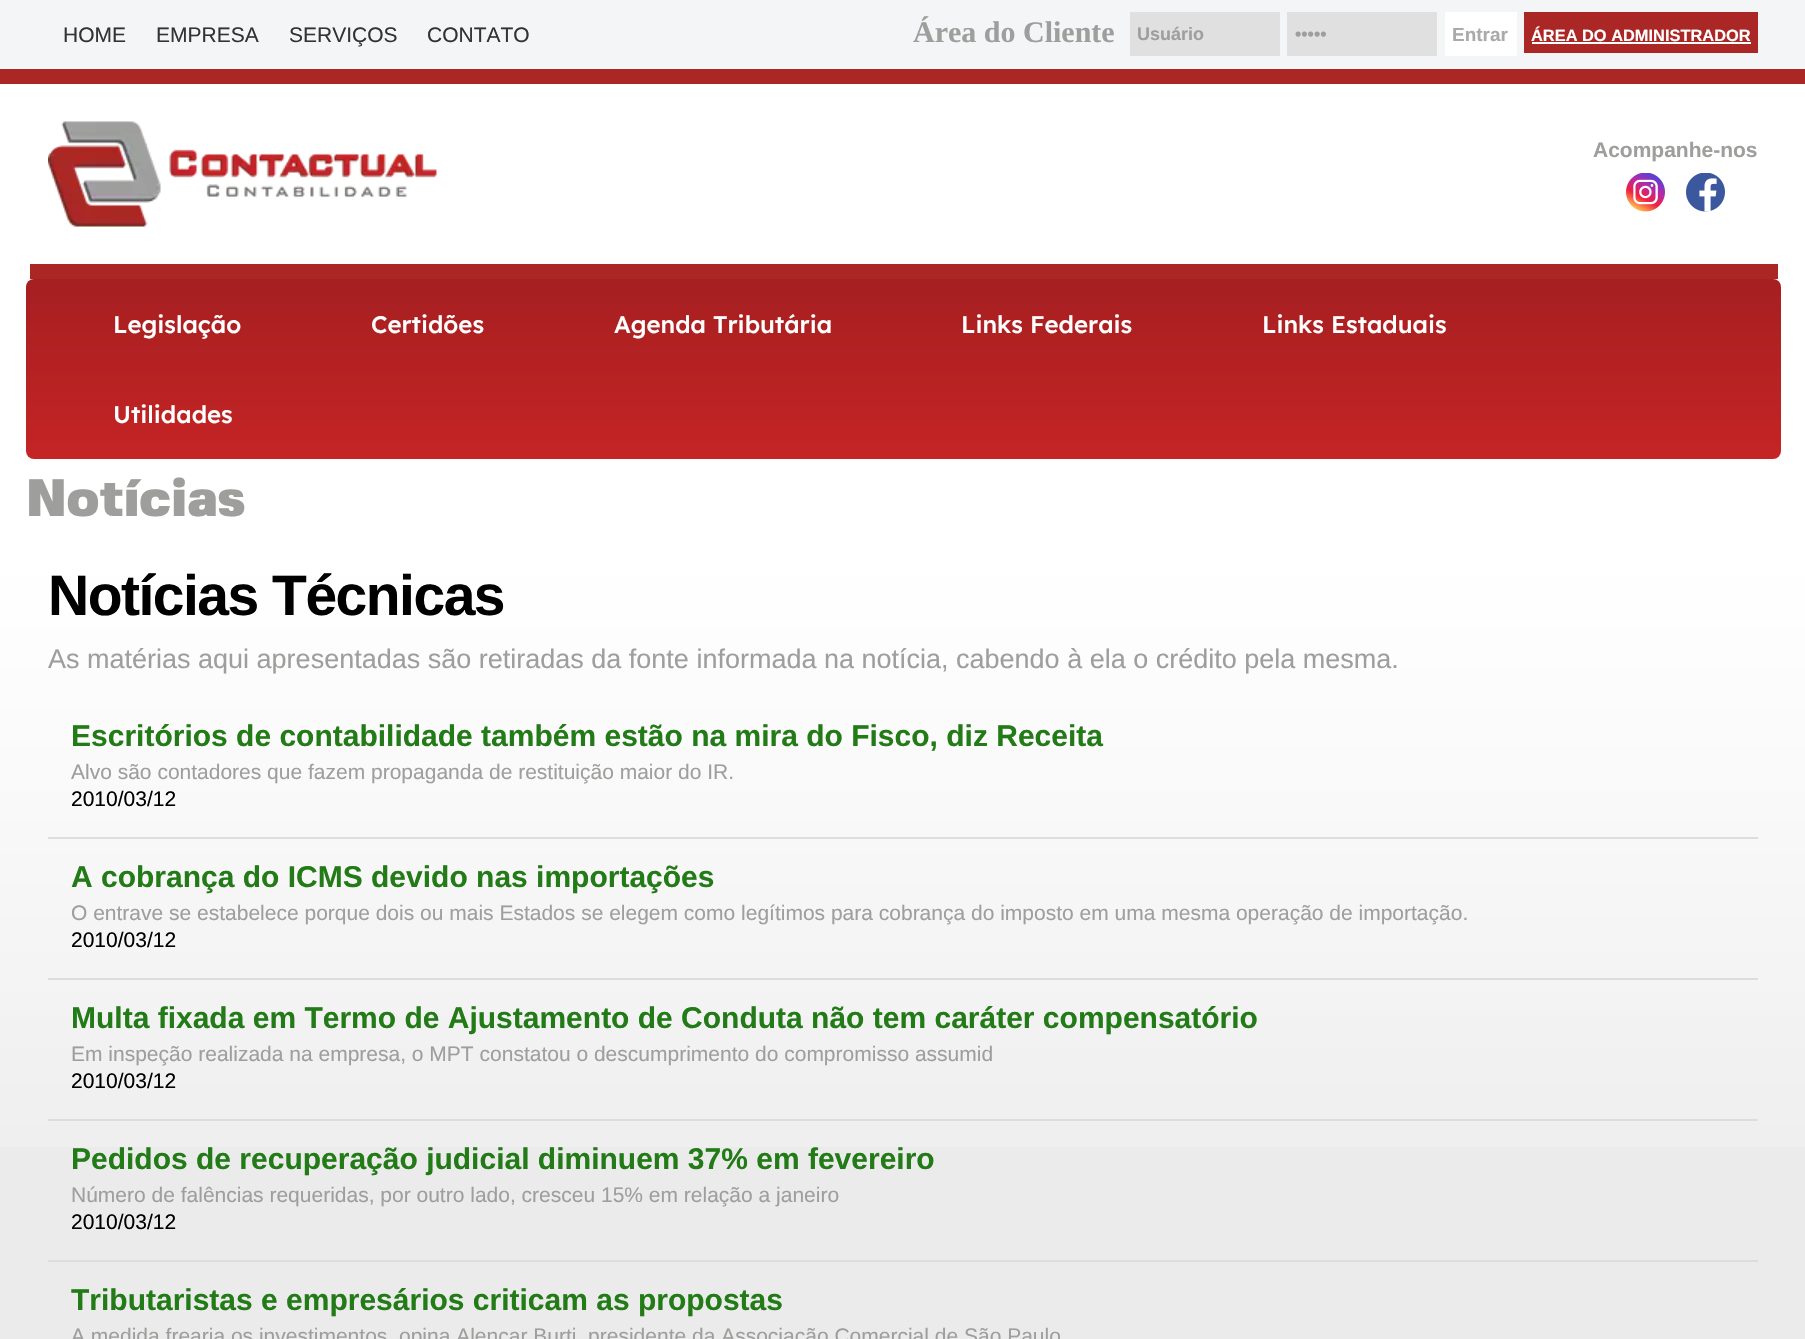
#include "include/core/SkBlurTypes.h"
#include "include/core/SkCanvas.h"
#include "include/core/SkData.h"
#include "include/core/SkFont.h"
#include "include/core/SkFontMgr.h"
#include "include/core/SkImage.h"
#include "include/core/SkMaskFilter.h"
#include "include/core/SkPaint.h"
#include "include/core/SkPathBuilder.h"
#include "include/core/SkTextBlob.h"
#include "include/effects/SkDashPathEffect.h"
#include "include/effects/SkGradientShader.h"
#include "include/utils/SkParsePath.h"

extern sk_sp<SkFontMgr> fontMgr;

static SkFont font(const char* family, int weight, float size, bool italic = false) {
    SkFontStyle style(weight, SkFontStyle::kNormal_Width,
        italic ? SkFontStyle::kItalic_Slant : SkFontStyle::kUpright_Slant);
    SkFont result(fontMgr->matchFamilyStyle(family, style), size);
    result.setSubpixel(true);
    return result;
}

static void drawLabel(SkCanvas* canvas, const char* s, float x, float y, const SkFont& font, SkColor color) {
    SkPaint ink(SkColor4f::FromColor(color));
    ink.setAntiAlias(true);
    canvas->drawString(s, x, y, font, ink);
}

static void drawTracked(SkCanvas* canvas, const char* s, float x, float y, const SkFont& font, const SkPaint& ink, float letter, float word) {
    std::vector<SkGlyphID> glyphs(font.countText(s, strlen(s), SkTextEncoding::kUTF8));
    std::vector<float> xs(glyphs.size());
    font.textToGlyphs(s, strlen(s), SkTextEncoding::kUTF8, glyphs);
    font.getXPos(glyphs, xs, x);
    float extra = 0;
    for (size_t i = 0; i < glyphs.size(); i++) {
        xs[i] += extra;
        extra += letter + word * (glyphs[i] == font.unicharToGlyph(' '));
    }
    canvas->drawTextBlob(SkTextBlob::MakeFromPosHGlyphs(glyphs, xs, y, font), 0, 0, ink);
}

static void fillRect(SkCanvas* canvas, float x, float y, float w, float h, SkColor color) {
    SkPaint ink(SkColor4f::FromColor(color));
    ink.setAntiAlias(true);
    canvas->drawRect(SkRect::MakeXYWH(x, y, w, h), ink);
}

static void drawPhoto(SkCanvas* canvas, const char* path, float x, float y, float w, float h) {
    auto image = SkImages::DeferredFromEncodedData(SkData::MakeFromFileName(path));
    canvas->drawImageRect(image, SkRect::MakeXYWH(x, y, w, h), SkSamplingOptions());
}

void draw(SkCanvas* canvas) {
    SkPaint paint;
    paint.setAntiAlias(true);
    canvas->clear(0xFFEBEBEB);
    drawPhoto(canvas, "assets/img1.png", 0, 84, 1805, 1063);
    fillRect(canvas, 0, 0, 1805, 69, 0xFFF3F5F6);
    fillRect(canvas, 0, 69, 1805, 15, 0xFFAB2725);
    SkFont font1 = font("Liberation Sans", 400, 21);
    drawLabel(canvas, "HOME", 63, 42, font1, 0xFF333333);
    drawLabel(canvas, "EMPRESA", 156, 42, font1, 0xFF333333);
    drawLabel(canvas, "SERVIÇOS", 289, 42, font1, 0xFF333333);
    drawLabel(canvas, "CONTATO", 427, 42, font1, 0xFF333333);
    SkFont font2 = font("Liberation Serif", 700, 30);
    drawLabel(canvas, "Área do Cliente", 913, 42, font2, 0xFF9E9E9D);
    fillRect(canvas, 1130, 12, 150, 44, 0xFFE0E0E0);
    SkFont font3 = font("Liberation Sans", 700, 18);
    drawLabel(canvas, "Usuário", 1137, 40, font3, 0xFF9E9E9D);
    fillRect(canvas, 1287, 12, 150, 44, 0xFFE0E0E0);
    drawLabel(canvas, "•••••", 1295, 40, font3, 0xFF9E9E9D);
    fillRect(canvas, 1445, 12, 72, 44, 0xFFFFFFFF);
    SkFont font4 = font("Liberation Sans", 700, 19);
    drawLabel(canvas, "Entrar", 1452, 41, font4, 0xFFAAAAAA);
    fillRect(canvas, 1524, 12, 234, 41, 0xFFAB2725);
    SkFont font5 = font("Liberation Sans", 700, 16.4f);
    drawLabel(canvas, "ÁREA DO ADMINISTRADOR", 1531, 41, font5, 0xFFFFFFFF);
    fillRect(canvas, 1532, 42, 219, 2, 0xFFFFFFFF);
    fillRect(canvas, 30, 264, 1748, 15, 0xFFAB2725);
    drawPhoto(canvas, "assets/img2.png", 48, 121, 389, 106);
    SkFont font6 = font("Liberation Sans", 700, 21);
    drawLabel(canvas, "Acompanhe-nos", 1593, 157, font6, 0xFF9E9E9D);
    drawPhoto(canvas, "assets/img3.png", 1626, 173, 39, 39);
    drawPhoto(canvas, "assets/img4.png", 1686, 173, 39, 39);
    {
        const SkColor colors[] = {0xFFC52425, 0xFFA61F21};
        const float stops[] = {0, 1};
        const SkPoint ends[] = {{26, 459}, {26, 279}};
        paint.setShader(SkGradientShader::MakeLinear(ends, colors, stops, 2, SkTileMode::kClamp));
        paint.setAlpha(255);
    }
    canvas->drawRoundRect(SkRect::MakeXYWH(26, 279, 1755, 180), 8, 8, paint);
    SkFont font7 = font("Lexend", 500, 24);
    drawLabel(canvas, "Legislação", 113, 333, font7, 0xFFFFFFFF);
    drawLabel(canvas, "Certidões", 371, 333, font7, 0xFFFFFFFF);
    drawLabel(canvas, "Agenda Tributária", 614, 333, font7, 0xFFFFFFFF);
    drawLabel(canvas, "Links Federais", 961, 333, font7, 0xFFFFFFFF);
    drawLabel(canvas, "Links Estaduais", 1262, 333, font7, 0xFFFFFFFF);
    drawLabel(canvas, "Utilidades", 113, 423, font7, 0xFFFFFFFF);
    SkFont font8 = font("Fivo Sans", 900, 52.5f);
    drawLabel(canvas, "Notícias", 26, 516, font8, 0xFF9E9E9D);
    SkFont font9 = font("Liberation Sans", 700, 57);
    paint.setShader(nullptr);
    paint.setColor(0xFF000000);
    drawTracked(canvas, "Notícias Técnicas", 48, 615, font9, paint, -1.5f, 0);
    SkFont font10 = font("Liberation Sans", 400, 27);
    drawLabel(canvas, "As matérias aqui apresentadas são retiradas da fonte informada na notícia, cabendo à ela o crédito pela mesma.", 48, 668, font10, 0xFF9E9E9D);
    SkFont font11 = font("Liberation Sans", 700, 30);
    drawLabel(canvas, "Escritórios de contabilidade também estão na mira do Fisco, diz Receita", 71, 746, font11, 0xFF227B16);
    drawLabel(canvas, "Alvo são contadores que fazem propaganda de restituição maior do IR.", 71, 779, font1, 0xFF9E9E9D);
    drawLabel(canvas, "2010/03/12", 71, 806, font1, 0xFF000000);
    fillRect(canvas, 48, 837, 1710, 2, 0xFFDDDDDD);
    drawLabel(canvas, "A cobrança do ICMS devido nas importações", 71, 887, font11, 0xFF227B16);
    drawLabel(canvas, "O entrave se estabelece porque dois ou mais Estados se elegem como legítimos para cobrança do imposto em uma mesma operação de importação.", 71, 920, font1, 0xFF9E9E9D);
    drawLabel(canvas, "2010/03/12", 71, 947, font1, 0xFF000000);
    fillRect(canvas, 48, 978, 1710, 2, 0xFFDDDDDD);
    drawLabel(canvas, "Multa fixada em Termo de Ajustamento de Conduta não tem caráter compensatório", 71, 1028, font11, 0xFF227B16);
    drawLabel(canvas, "Em inspeção realizada na empresa, o MPT constatou o descumprimento do compromisso assumid", 71, 1061, font1, 0xFF9E9E9D);
    drawLabel(canvas, "2010/03/12", 71, 1088, font1, 0xFF000000);
    fillRect(canvas, 48, 1119, 1710, 2, 0xFFDDDDDD);
    drawLabel(canvas, "Pedidos de recuperação judicial diminuem 37% em fevereiro", 71, 1169, font11, 0xFF227B16);
    drawLabel(canvas, "Número de falências requeridas, por outro lado, cresceu 15% em relação a janeiro", 71, 1202, font1, 0xFF9E9E9D);
    drawLabel(canvas, "2010/03/12", 71, 1229, font1, 0xFF000000);
    fillRect(canvas, 48, 1260, 1710, 2, 0xFFDDDDDD);
    drawLabel(canvas, "Tributaristas e empresários criticam as propostas", 71, 1310, font11, 0xFF227B16);
    drawLabel(canvas, "A medida frearia os investimentos, opina Alencar Burti, presidente da Associação Comercial de São Paulo", 71, 1343, font1, 0xFF9E9E9D);
}
